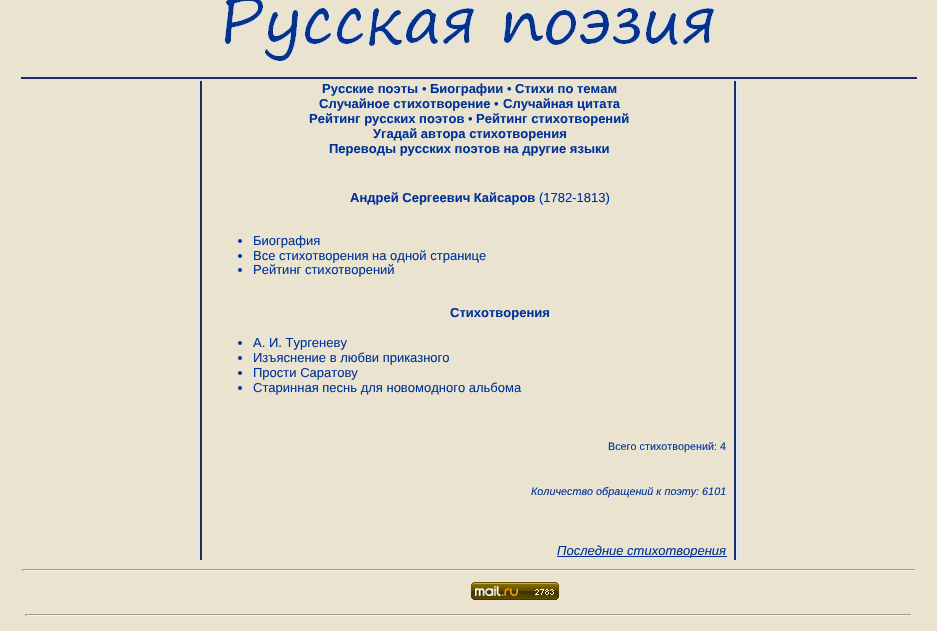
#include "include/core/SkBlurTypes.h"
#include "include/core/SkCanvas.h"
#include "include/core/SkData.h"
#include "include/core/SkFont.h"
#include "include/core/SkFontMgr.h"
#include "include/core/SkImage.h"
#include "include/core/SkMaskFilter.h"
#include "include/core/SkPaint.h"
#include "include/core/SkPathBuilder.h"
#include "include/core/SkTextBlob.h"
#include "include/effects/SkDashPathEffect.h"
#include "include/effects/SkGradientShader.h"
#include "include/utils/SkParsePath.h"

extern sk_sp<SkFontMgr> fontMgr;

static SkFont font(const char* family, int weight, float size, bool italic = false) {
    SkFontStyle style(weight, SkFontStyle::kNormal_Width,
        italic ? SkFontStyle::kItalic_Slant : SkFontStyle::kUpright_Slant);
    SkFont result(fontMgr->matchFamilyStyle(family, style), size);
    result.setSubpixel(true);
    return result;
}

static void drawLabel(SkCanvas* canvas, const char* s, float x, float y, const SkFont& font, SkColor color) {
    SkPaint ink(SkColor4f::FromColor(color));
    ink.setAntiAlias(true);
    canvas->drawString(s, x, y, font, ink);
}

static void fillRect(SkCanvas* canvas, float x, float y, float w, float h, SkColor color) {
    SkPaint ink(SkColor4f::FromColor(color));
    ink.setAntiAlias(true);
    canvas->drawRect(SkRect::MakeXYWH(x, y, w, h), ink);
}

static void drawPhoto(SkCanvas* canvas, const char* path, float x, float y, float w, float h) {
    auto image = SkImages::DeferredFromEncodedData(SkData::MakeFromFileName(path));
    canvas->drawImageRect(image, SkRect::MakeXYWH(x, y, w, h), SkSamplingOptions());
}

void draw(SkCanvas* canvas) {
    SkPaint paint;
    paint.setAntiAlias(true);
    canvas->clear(0xFFEAE3D0);
    drawPhoto(canvas, "assets/img1.png", 212, 0, 512, 63);
    drawPhoto(canvas, "assets/img2.png", 21, 77, 896, 2);
    drawPhoto(canvas, "assets/img3.png", 197, 81, 5, 479);
    SkFont font1 = font("Liberation Sans", 700, 13);
    drawLabel(canvas, "Русские поэты", 322, 93, font1, 0xFF003399);
    SkFont font2 = font("Liberation Sans", 400, 13);
    drawLabel(canvas, "•", 422, 93, font2, 0xFF003399);
    drawLabel(canvas, "Биографии", 430, 93, font1, 0xFF003399);
    drawLabel(canvas, "•", 507, 93, font2, 0xFF003399);
    drawLabel(canvas, "Стихи по темам", 515, 93, font1, 0xFF003399);
    drawLabel(canvas, "Случайное стихотворение", 319, 108, font1, 0xFF003399);
    drawLabel(canvas, "•", 494, 108, font2, 0xFF003399);
    drawLabel(canvas, "Случайная цитата", 503, 108, font1, 0xFF003399);
    drawLabel(canvas, "Рейтинг русских поэтов", 309, 123, font1, 0xFF003399);
    drawLabel(canvas, "•", 468, 123, font2, 0xFF003399);
    drawLabel(canvas, "Рейтинг стихотворений", 476, 123, font1, 0xFF003399);
    drawLabel(canvas, "Угадай автора стихотворения", 373, 138, font1, 0xFF003399);
    drawLabel(canvas, "Переводы русских поэтов на другие языки", 329, 153, font1, 0xFF003399);
    drawPhoto(canvas, "assets/img4.png", 734, 81, 183, 479);
    drawLabel(canvas, "Андрей Сергеевич Кайсаров", 350, 202, font1, 0xFF003399);
    drawLabel(canvas, "(1782-1813)", 539, 202, font2, 0xFF003399);
    paint.setColor(0xFF003399);
    canvas->drawCircle(240, 241, 2, paint);
    drawLabel(canvas, "Биография", 253, 245, font2, 0xFF003399);
    canvas->drawCircle(240, 256, 2, paint);
    drawLabel(canvas, "Все стихотворения на одной странице", 253, 260, font2, 0xFF003399);
    canvas->drawCircle(240, 270, 2, paint);
    drawLabel(canvas, "Рейтинг стихотворений", 253, 274, font2, 0xFF003399);
    drawLabel(canvas, "Стихотворения", 450, 317, font1, 0xFF003399);
    canvas->drawCircle(240, 343, 2, paint);
    drawLabel(canvas, "А. И. Тургеневу", 253, 347, font2, 0xFF003399);
    canvas->drawCircle(240, 358, 2, paint);
    drawLabel(canvas, "Изъяснение в любви приказного", 253, 362, font2, 0xFF003399);
    canvas->drawCircle(240, 373, 2, paint);
    drawLabel(canvas, "Прости Саратову", 253, 377, font2, 0xFF003399);
    canvas->drawCircle(240, 388, 2, paint);
    drawLabel(canvas, "Старинная песнь для новомодного альбома", 253, 392, font2, 0xFF003399);
    SkFont font3 = font("Liberation Sans", 400, 10.8f);
    drawLabel(canvas, "Всего стихотворений: 4", 608, 450, font3, 0xFF003399);
    SkFont font4 = font("Liberation Sans", 400, 10.8f, true);
    drawLabel(canvas, "Количество обращений к поэту: 6101", 531, 495, font4, 0xFF003399);
    fillRect(canvas, 557, 556, 170, 1, 0xFF003399);
    SkFont font5 = font("Liberation Sans", 400, 13, true);
    drawLabel(canvas, "Последние стихотворения", 557, 555, font5, 0xFF003399);
    fillRect(canvas, 22, 569, 894, 1, 0xFF9F9F9F);
    fillRect(canvas, 915, 569, 1, 2, 0xFFEEEEEE);
    fillRect(canvas, 22, 570, 894, 1, 0xFFEEEEEE);
    fillRect(canvas, 22, 569, 1, 2, 0xFF9F9F9F);
    drawPhoto(canvas, "assets/img5.png", 471, 582, 88, 18);
    fillRect(canvas, 25, 614, 887, 1, 0xFF9F9F9F);
    fillRect(canvas, 911, 614, 1, 2, 0xFFEEEEEE);
    fillRect(canvas, 25, 615, 887, 1, 0xFFEEEEEE);
    fillRect(canvas, 25, 614, 1, 2, 0xFF9F9F9F);
}
